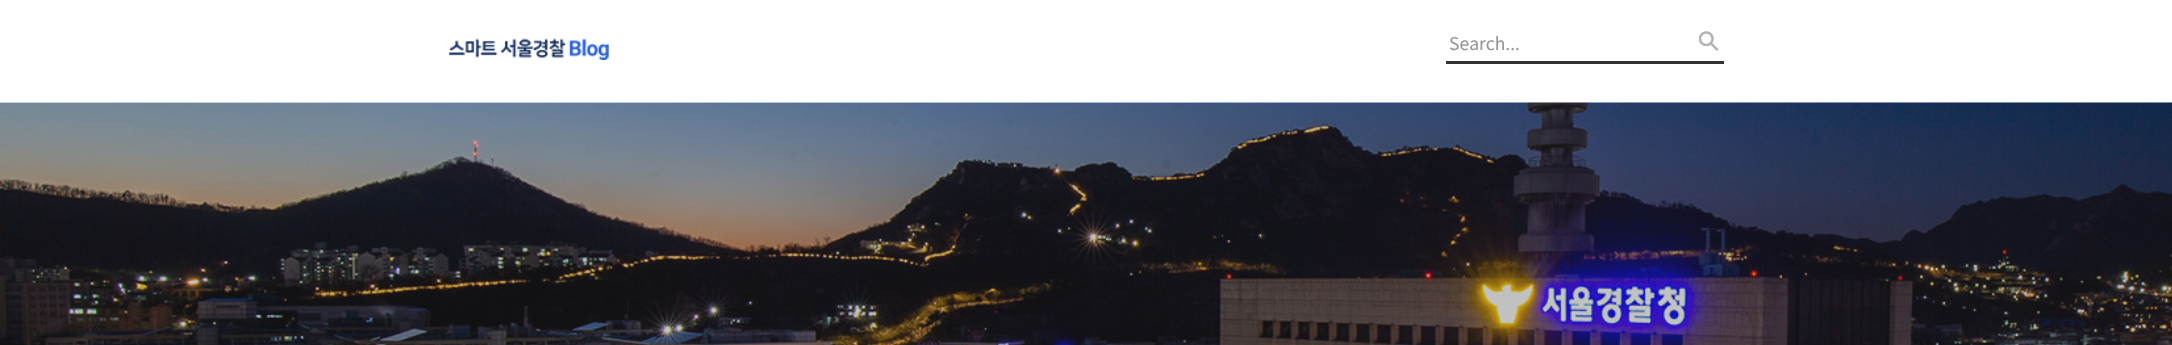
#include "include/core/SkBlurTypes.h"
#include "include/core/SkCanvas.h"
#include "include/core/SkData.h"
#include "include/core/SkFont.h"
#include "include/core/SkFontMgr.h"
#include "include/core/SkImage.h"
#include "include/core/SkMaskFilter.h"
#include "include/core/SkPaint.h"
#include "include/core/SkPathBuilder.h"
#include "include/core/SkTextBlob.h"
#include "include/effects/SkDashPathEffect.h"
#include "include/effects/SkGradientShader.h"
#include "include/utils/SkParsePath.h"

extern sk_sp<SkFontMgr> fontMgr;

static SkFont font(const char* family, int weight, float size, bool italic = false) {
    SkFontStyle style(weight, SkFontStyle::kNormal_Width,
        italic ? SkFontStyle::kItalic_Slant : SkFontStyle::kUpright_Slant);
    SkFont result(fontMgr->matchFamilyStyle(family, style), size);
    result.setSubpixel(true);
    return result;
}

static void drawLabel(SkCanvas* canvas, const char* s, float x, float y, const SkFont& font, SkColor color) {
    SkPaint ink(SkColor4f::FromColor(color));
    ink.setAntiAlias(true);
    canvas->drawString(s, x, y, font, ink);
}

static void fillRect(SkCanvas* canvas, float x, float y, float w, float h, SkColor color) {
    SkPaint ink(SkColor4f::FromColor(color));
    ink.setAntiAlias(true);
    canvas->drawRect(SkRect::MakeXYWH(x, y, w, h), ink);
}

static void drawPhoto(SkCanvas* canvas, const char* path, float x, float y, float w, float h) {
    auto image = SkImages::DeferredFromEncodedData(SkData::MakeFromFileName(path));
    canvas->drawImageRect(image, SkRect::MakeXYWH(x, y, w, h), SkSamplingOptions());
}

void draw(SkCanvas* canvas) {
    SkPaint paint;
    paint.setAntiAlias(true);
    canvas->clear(0xFFFFFFFF);
    drawPhoto(canvas, "assets/img1.png", 448, 38, 161, 22);
    drawPhoto(canvas, "assets/img2.png", 1699, 31, 20, 20);
    fillRect(canvas, 1446, 61, 278, 3, 0xFF333333);
    SkFont font1 = font("Noto Sans KR", 400, 17.5f);
    drawLabel(canvas, "Search...", 1449, 50, font1, 0xFF969696);
    drawPhoto(canvas, "assets/img3.png", 0, 102, 2172, 243);
}
